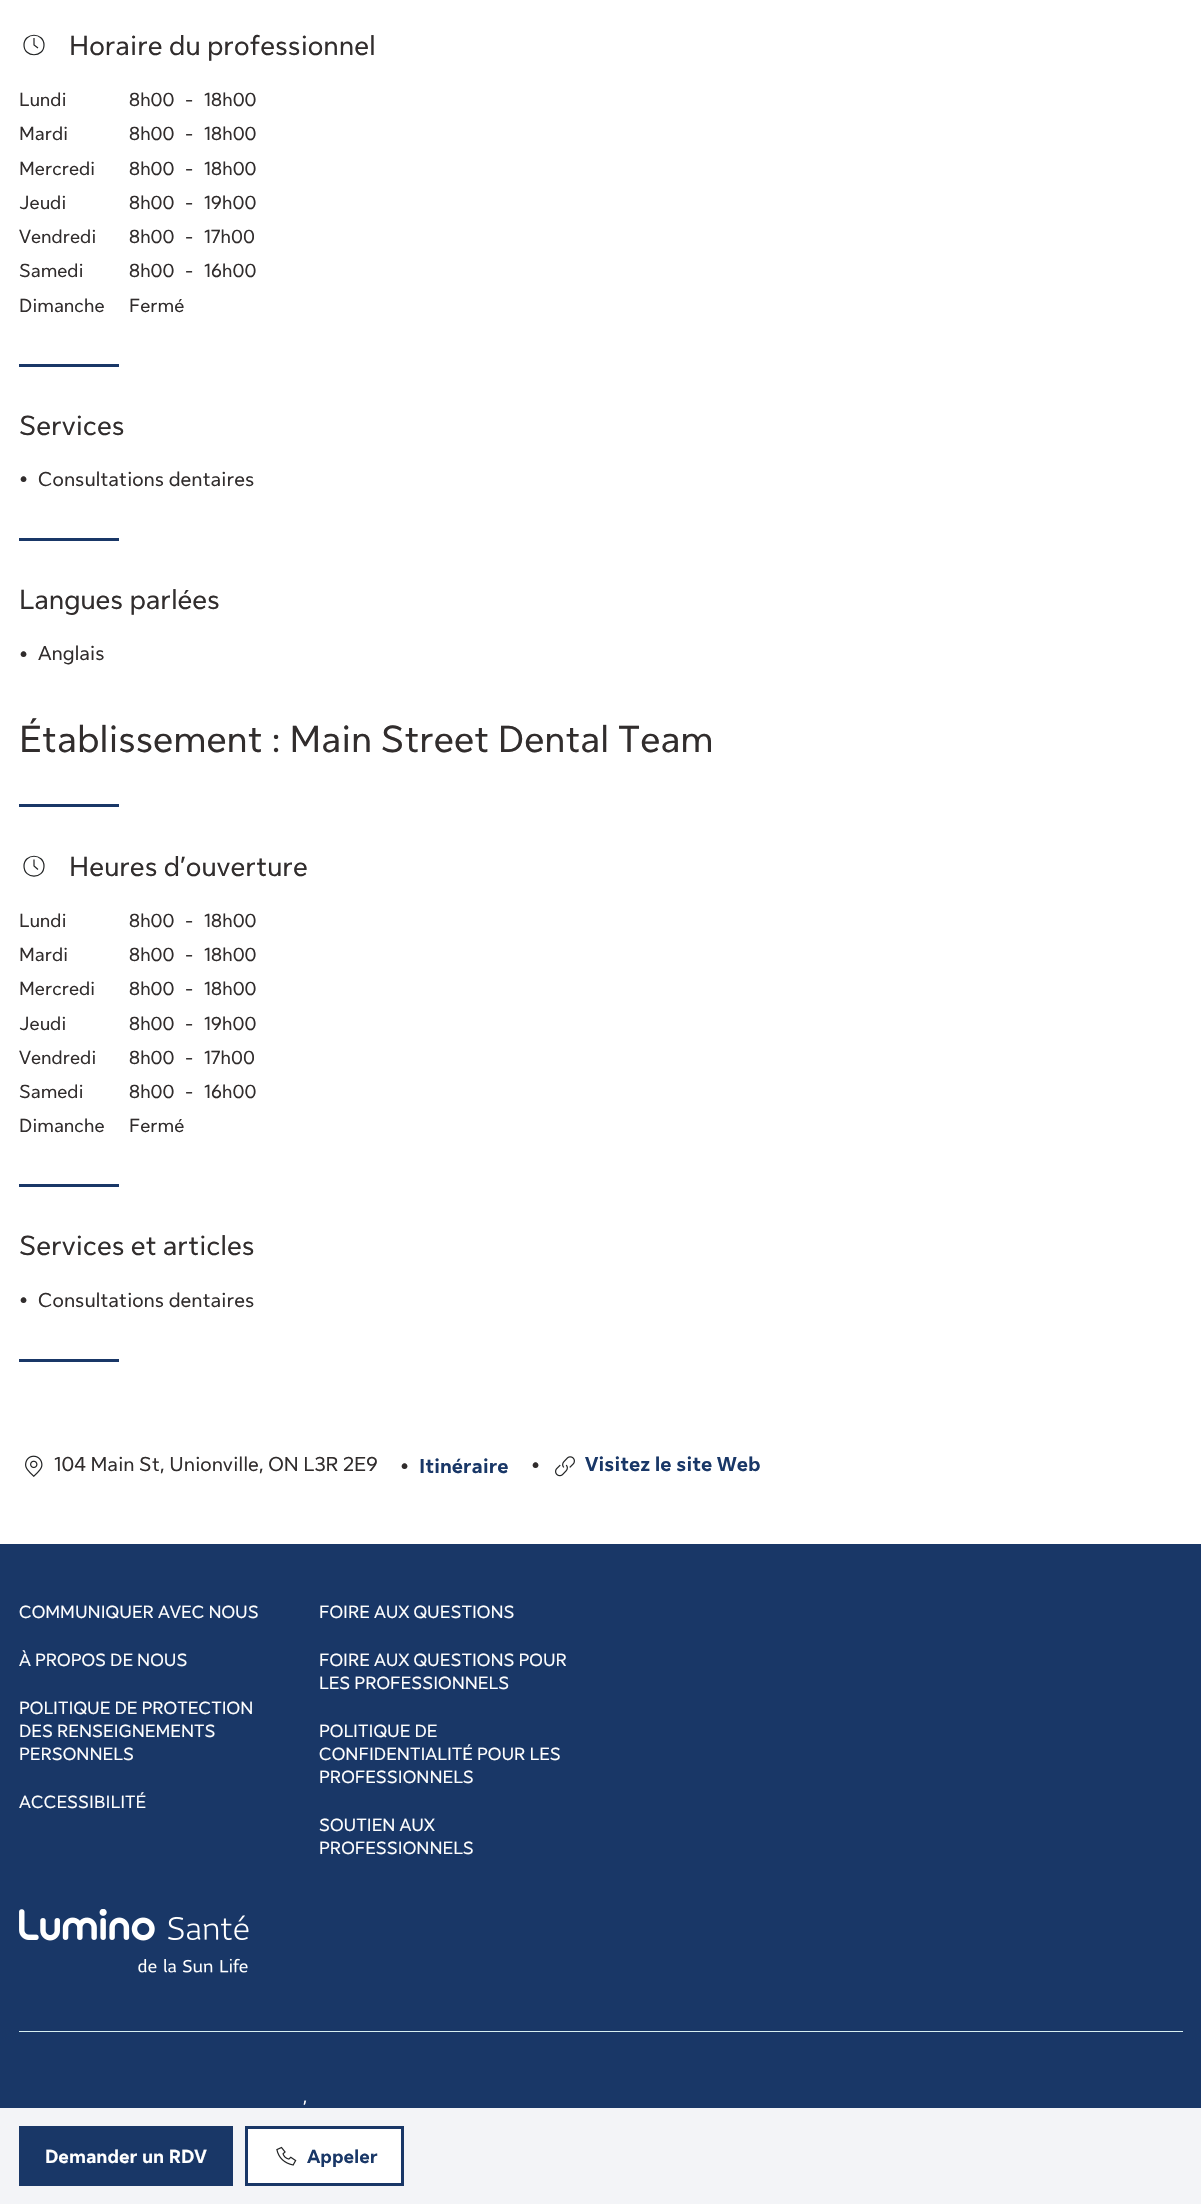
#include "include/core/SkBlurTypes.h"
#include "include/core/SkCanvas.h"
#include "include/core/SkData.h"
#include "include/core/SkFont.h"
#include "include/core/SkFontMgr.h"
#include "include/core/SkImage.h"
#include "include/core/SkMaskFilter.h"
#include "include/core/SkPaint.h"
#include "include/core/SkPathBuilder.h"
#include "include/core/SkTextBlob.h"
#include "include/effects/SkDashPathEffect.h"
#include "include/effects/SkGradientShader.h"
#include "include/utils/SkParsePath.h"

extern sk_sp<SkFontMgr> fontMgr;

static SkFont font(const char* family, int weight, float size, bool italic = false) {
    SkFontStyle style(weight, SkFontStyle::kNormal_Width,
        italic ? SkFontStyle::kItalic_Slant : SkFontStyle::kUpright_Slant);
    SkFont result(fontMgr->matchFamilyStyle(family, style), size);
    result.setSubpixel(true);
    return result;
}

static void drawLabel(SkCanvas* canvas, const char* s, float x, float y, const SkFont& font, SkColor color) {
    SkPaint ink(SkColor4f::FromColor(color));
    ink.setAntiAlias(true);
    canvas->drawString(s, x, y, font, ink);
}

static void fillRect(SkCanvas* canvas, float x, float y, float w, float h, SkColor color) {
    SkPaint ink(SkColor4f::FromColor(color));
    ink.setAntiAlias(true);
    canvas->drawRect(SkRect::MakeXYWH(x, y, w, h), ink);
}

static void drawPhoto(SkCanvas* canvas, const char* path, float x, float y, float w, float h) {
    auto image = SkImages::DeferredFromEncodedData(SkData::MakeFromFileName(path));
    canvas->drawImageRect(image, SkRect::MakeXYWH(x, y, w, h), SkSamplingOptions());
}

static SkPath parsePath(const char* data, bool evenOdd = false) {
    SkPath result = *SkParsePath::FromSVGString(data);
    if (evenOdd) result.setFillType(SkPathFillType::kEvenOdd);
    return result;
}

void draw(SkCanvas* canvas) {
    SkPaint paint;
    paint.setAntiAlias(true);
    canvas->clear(0xFFFFFFFF);
    paint.setStroke(true);
    paint.setStrokeWidth(1.2f);
    paint.setColor(0xFF202223);
    canvas->drawPath(parsePath("M34 38V45L38 48M44 45C44 58 24 58 24 45C24 32 44 32 44 45Z"), paint);
    SkFont font1 = font("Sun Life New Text", 400, 27.5f);
    drawLabel(canvas, "Horaire du professionnel", 69, 55, font1, 0xFF312D2D);
    SkFont font2 = font("Sun Life New Text", 400, 18.75f);
    drawLabel(canvas, "Lundi", 19, 106, font2, 0xFF312D2D);
    drawLabel(canvas, "8h00", 129, 106, font2, 0xFF312D2D);
    drawLabel(canvas, "-", 185, 106, font2, 0xFF312D2D);
    drawLabel(canvas, "18h00", 204, 106, font2, 0xFF312D2D);
    drawLabel(canvas, "Mardi", 19, 140, font2, 0xFF312D2D);
    drawLabel(canvas, "8h00", 129, 140, font2, 0xFF312D2D);
    drawLabel(canvas, "-", 185, 140, font2, 0xFF312D2D);
    drawLabel(canvas, "18h00", 204, 140, font2, 0xFF312D2D);
    drawLabel(canvas, "Mercredi", 19, 175, font2, 0xFF312D2D);
    drawLabel(canvas, "8h00", 129, 175, font2, 0xFF312D2D);
    drawLabel(canvas, "-", 185, 175, font2, 0xFF312D2D);
    drawLabel(canvas, "18h00", 204, 175, font2, 0xFF312D2D);
    drawLabel(canvas, "Jeudi", 19, 209, font2, 0xFF312D2D);
    drawLabel(canvas, "8h00", 129, 209, font2, 0xFF312D2D);
    drawLabel(canvas, "-", 185, 209, font2, 0xFF312D2D);
    drawLabel(canvas, "19h00", 204, 209, font2, 0xFF312D2D);
    drawLabel(canvas, "Vendredi", 19, 243, font2, 0xFF312D2D);
    drawLabel(canvas, "8h00", 129, 243, font2, 0xFF312D2D);
    drawLabel(canvas, "-", 185, 243, font2, 0xFF312D2D);
    drawLabel(canvas, "17h00", 204, 243, font2, 0xFF312D2D);
    drawLabel(canvas, "Samedi", 19, 277, font2, 0xFF312D2D);
    drawLabel(canvas, "8h00", 129, 277, font2, 0xFF312D2D);
    drawLabel(canvas, "-", 185, 277, font2, 0xFF312D2D);
    drawLabel(canvas, "16h00", 204, 277, font2, 0xFF312D2D);
    drawLabel(canvas, "Dimanche", 19, 312, font2, 0xFF312D2D);
    drawLabel(canvas, "Fermé", 129, 312, font2, 0xFF312D2D);
    fillRect(canvas, 19, 364, 100, 3, 0xFF193767);
    drawLabel(canvas, "Services", 19, 435, font1, 0xFF312D2D);
    SkFont font3 = font("Sun Life New Text", 700, 27.5f);
    drawLabel(canvas, "•", 19, 488, font3, 0xFF312D2D);
    SkFont font4 = font("Sun Life New Text", 400, 20);
    drawLabel(canvas, "Consultations dentaires", 38, 486, font4, 0xFF312D2D);
    fillRect(canvas, 19, 538, 100, 3, 0xFF193767);
    drawLabel(canvas, "Langues parlées", 19, 609, font1, 0xFF312D2D);
    drawLabel(canvas, "•", 19, 663, font3, 0xFF312D2D);
    drawLabel(canvas, "Anglais", 38, 660, font4, 0xFF312D2D);
    SkFont font5 = font("Sun Life New Text", 400, 37.5f);
    drawLabel(canvas, "Établissement : Main Street Dental Team", 19, 752, font5, 0xFF312D2D);
    fillRect(canvas, 19, 804, 100, 3, 0xFF193767);
    canvas->drawPath(parsePath("M34 859.5V866L38 869.5M44 866C44 879.5 24 879.5 24 866C24 853 44 853 44 866Z"), paint);
    drawLabel(canvas, "Heures d’ouverture", 69, 876, font1, 0xFF312D2D);
    drawLabel(canvas, "Lundi", 19, 927, font2, 0xFF312D2D);
    drawLabel(canvas, "8h00", 129, 927, font2, 0xFF312D2D);
    drawLabel(canvas, "-", 185, 927, font2, 0xFF312D2D);
    drawLabel(canvas, "18h00", 204, 927, font2, 0xFF312D2D);
    drawLabel(canvas, "Mardi", 19, 961, font2, 0xFF312D2D);
    drawLabel(canvas, "8h00", 129, 961, font2, 0xFF312D2D);
    drawLabel(canvas, "-", 185, 961, font2, 0xFF312D2D);
    drawLabel(canvas, "18h00", 204, 961, font2, 0xFF312D2D);
    drawLabel(canvas, "Mercredi", 19, 995, font2, 0xFF312D2D);
    drawLabel(canvas, "8h00", 129, 995, font2, 0xFF312D2D);
    drawLabel(canvas, "-", 185, 995, font2, 0xFF312D2D);
    drawLabel(canvas, "18h00", 204, 995, font2, 0xFF312D2D);
    drawLabel(canvas, "Jeudi", 19, 1030, font2, 0xFF312D2D);
    drawLabel(canvas, "8h00", 129, 1030, font2, 0xFF312D2D);
    drawLabel(canvas, "-", 185, 1030, font2, 0xFF312D2D);
    drawLabel(canvas, "19h00", 204, 1030, font2, 0xFF312D2D);
    drawLabel(canvas, "Vendredi", 19, 1064, font2, 0xFF312D2D);
    drawLabel(canvas, "8h00", 129, 1064, font2, 0xFF312D2D);
    drawLabel(canvas, "-", 185, 1064, font2, 0xFF312D2D);
    drawLabel(canvas, "17h00", 204, 1064, font2, 0xFF312D2D);
    drawLabel(canvas, "Samedi", 19, 1098, font2, 0xFF312D2D);
    drawLabel(canvas, "8h00", 129, 1098, font2, 0xFF312D2D);
    drawLabel(canvas, "-", 185, 1098, font2, 0xFF312D2D);
    drawLabel(canvas, "16h00", 204, 1098, font2, 0xFF312D2D);
    drawLabel(canvas, "Dimanche", 19, 1132, font2, 0xFF312D2D);
    drawLabel(canvas, "Fermé", 129, 1132, font2, 0xFF312D2D);
    fillRect(canvas, 19, 1184, 100, 3, 0xFF193767);
    drawLabel(canvas, "Services et articles", 19, 1255, font1, 0xFF312D2D);
    drawLabel(canvas, "•", 19, 1309, font3, 0xFF312D2D);
    drawLabel(canvas, "Consultations dentaires", 38, 1307, font4, 0xFF312D2D);
    fillRect(canvas, 19, 1359, 100, 3, 0xFF193767);
    drawPhoto(canvas, "assets/img1.png", 25, 1455, 18, 22);
    drawLabel(canvas, "104 Main St, Unionville, ON L3R 2E9", 54, 1471, font4, 0xFF312D2D);
    drawLabel(canvas, "•", 400, 1475, font3, 0xFF312D2D);
    SkFont font6 = font("Sun Life New Text", 700, 20);
    drawLabel(canvas, "Itinéraire", 419, 1473, font6, 0xFF193767);
    drawLabel(canvas, "•", 531, 1474, font3, 0xFF312D2D);
    drawPhoto(canvas, "assets/img2.png", 555, 1456, 20, 21);
    drawLabel(canvas, "Visitez le site Web", 585, 1471, font6, 0xFF193767);
    fillRect(canvas, 0, 2108, 1201, 96, 0xFFF3F4F7);
    fillRect(canvas, 19, 2126, 214, 60, 0xFF193767);
    SkFont font7 = font("Sun Life New Text", 700, 18.75f);
    drawLabel(canvas, "Demander un RDV", 45, 2163, font7, 0xFFFFFFFF);
    paint.setStroke(false);
    paint.setColor(0xFFFFFFFF);
    canvas->drawRect(SkRect::MakeXYWH(246.5f, 2127.5f, 156, 57), paint);
    paint.setStroke(true);
    paint.setStrokeWidth(3);
    paint.setColor(0xFF193767);
    canvas->drawRect(SkRect::MakeXYWH(246.5f, 2127.5f, 156, 57), paint);
    drawPhoto(canvas, "assets/img3.png", 276, 2146, 21, 20);
    drawLabel(canvas, "Appeler", 307, 2163, font7, 0xFF193767);
    fillRect(canvas, 0, 1544, 1201, 564, 0xFF193767);
    SkFont font8 = font("Sun Life New Text", 400, 17.5f);
    drawLabel(canvas, "COMMUNIQUER AVEC NOUS", 19, 1618, font8, 0xFFFFFFFF);
    drawLabel(canvas, "À PROPOS DE NOUS", 19, 1666, font8, 0xFFFFFFFF);
    drawLabel(canvas, "POLITIQUE DE PROTECTION", 19, 1714, font8, 0xFFFFFFFF);
    drawLabel(canvas, "DES RENSEIGNEMENTS", 19, 1737, font8, 0xFFFFFFFF);
    drawLabel(canvas, "PERSONNELS", 19, 1760, font8, 0xFFFFFFFF);
    drawLabel(canvas, "ACCESSIBILITÉ", 19, 1808, font8, 0xFFFFFFFF);
    drawLabel(canvas, "FOIRE AUX QUESTIONS", 319, 1618, font8, 0xFFFFFFFF);
    drawLabel(canvas, "FOIRE AUX QUESTIONS POUR", 319, 1666, font8, 0xFFFFFFFF);
    drawLabel(canvas, "LES PROFESSIONNELS", 319, 1689, font8, 0xFFFFFFFF);
    drawLabel(canvas, "POLITIQUE DE", 319, 1737, font8, 0xFFFFFFFF);
    drawLabel(canvas, "CONFIDENTIALITÉ POUR LES", 319, 1760, font8, 0xFFFFFFFF);
    drawLabel(canvas, "PROFESSIONNELS", 319, 1783, font8, 0xFFFFFFFF);
    drawLabel(canvas, "SOUTIEN AUX", 319, 1831, font8, 0xFFFFFFFF);
    drawLabel(canvas, "PROFESSIONNELS", 319, 1854, font8, 0xFFFFFFFF);
    drawPhoto(canvas, "assets/img4.png", 19, 1909, 230, 64);
    fillRect(canvas, 19, 2031, 1164, 1, 0xFFD6EFF0);
    drawLabel(canvas, "’", 303, 2113, font8, 0xFFFFFFFF);
}
